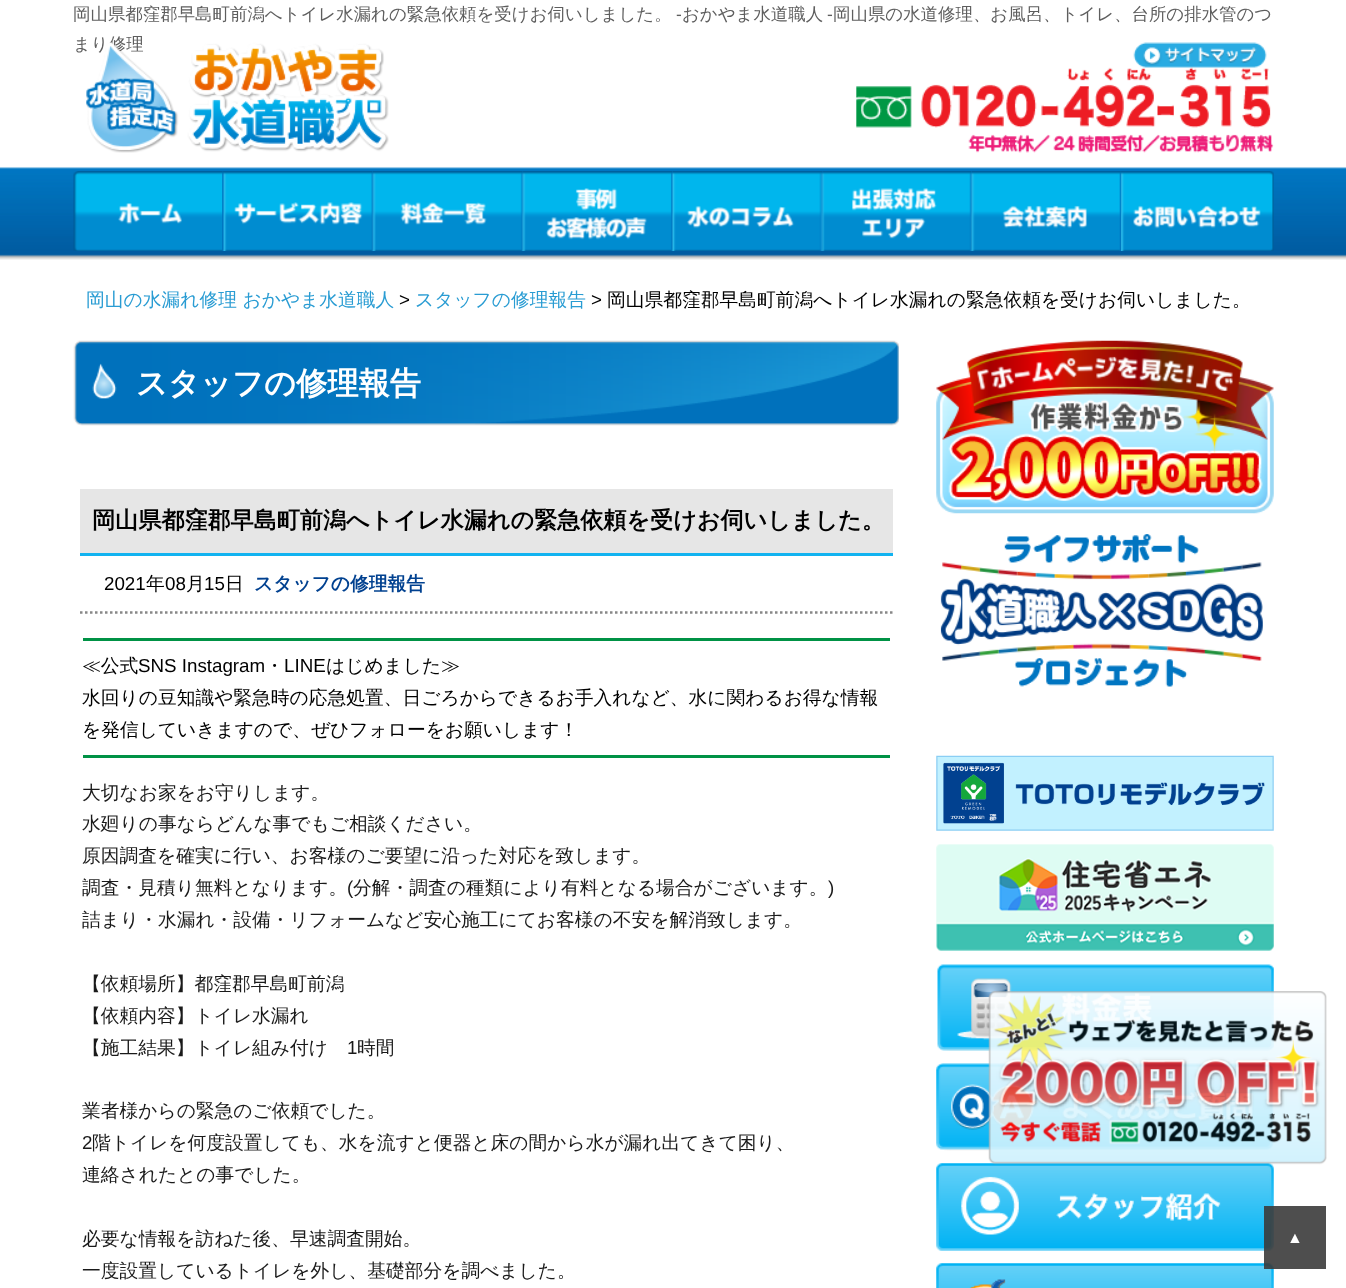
(async () => {
const canvas = document.querySelector("canvas")
canvas.width = 1346
canvas.height = 1288
const c = canvas.getContext("2d")
c.miterLimit = 4
c.fontKerning = "normal"
function T(s,x,y){c.fillText(s,x,y)}
function R(x,y,w,h){c.fillRect(x,y,w,h)}
async function I(src,x,y,w,h){const img=new Image();img.src=src;await img.decode();c.drawImage(img,x,y,w,h)}
let path
c.fillStyle="#fff"
R(0,0,1346,1288)
await I("1.png",0,24,1346,236)
c.font="500 17.45px WenQuanYi Zen Hei"
c.fillStyle="#5e5e5e"
T("岡山県都窪郡早島町前潟へトイレ水漏れの緊急依頼を受けお伺いしました。",73,20)
c.font="17.45px Liberation Sans"
T("-",676,20)
c.font="500 17.45px WenQuanYi Zen Hei"
T("おかやま水道職人",682,20)
c.font="17.45px Liberation Sans"
T("-",827,20)
c.font="500 17.45px WenQuanYi Zen Hei"
T("岡山県の水道修理、お風呂、トイレ、台所の排水管のつ",833,20)
T("まり修理",73,50)
await I("2.png",86,42,303,111)
await I("3.png",1133,42,134,26)
await I("4.png",856,67,418,86)
await I("5.png",73,171,150,80)
await I("6.png",222,171,151,80)
await I("7.png",372,171,151,80)
await I("8.png",522,171,151,80)
await I("9.png",672,171,151,80)
await I("10.png",822,171,150,80)
await I("11.png",970,171,152,80)
await I("12.png",1121,171,153,80)
c.font="500 18.75px WenQuanYi Zen Hei"
c.fillStyle="#299cd3"
T("岡山の水漏れ修理 おかやま水道職人",86,306)
c.font="18.75px Liberation Sans"
c.fillStyle="#000"
T(">",399,306)
c.font="500 18.75px WenQuanYi Zen Hei"
c.fillStyle="#299cd3"
T("スタッフの修理報告",415,306)
c.font="18.75px Liberation Sans"
c.fillStyle="#000"
T(">",591,306)
c.font="500 18.75px WenQuanYi Zen Hei"
T("岡山県都窪郡早島町前潟へトイレ水漏れの緊急依頼を受けお伺いしました。",607,306)
await I("13.png",73,340,826,86)
c.font="bold 31.25px WenQuanYi Zen Hei"
c.fillStyle="#fff"
T("スタッフの修理報告",136,394)
c.fillStyle="#e6e6e6"
R(80,489,813,64)
c.fillStyle="#12b3f0"
R(80,553,813,3)
c.font="bold 23.1px WenQuanYi Zen Hei"
c.fillStyle="#000"
T("岡山県都窪郡早島町前潟へトイレ水漏れの緊急依頼を受けお伺いしました。",92,528)
path = new Path2D("M80 612.5h812.5")
c.strokeStyle="#888"
c.lineWidth=2.5
c.setLineDash([2.5,2.5])
c.stroke(path)
c.font="18.75px Liberation Sans"
T("2021",104,590)
c.font="500 18.75px WenQuanYi Zen Hei"
T("年",146,590)
c.font="18.75px Liberation Sans"
T("08",165,590)
c.font="500 18.75px WenQuanYi Zen Hei"
T("月",186,590)
c.font="18.75px Liberation Sans"
T("15",204,590)
c.font="500 18.75px WenQuanYi Zen Hei"
T("日",225,590)
c.font="bold 18.75px WenQuanYi Zen Hei"
c.fillStyle="#014190"
T("スタッフの修理報告",254,590)
c.fillStyle="#009245"
R(83,638,807,3)
c.font="500 18.75px WenQuanYi Zen Hei"
c.fillStyle="#000"
T("≪公式",82,672)
c.font="18.75px Liberation Sans"
T("SNS Instagram",138,672)
c.font="500 18.75px WenQuanYi Zen Hei"
T("・",265,672)
c.font="18.75px Liberation Sans"
T("LINE",284,672)
c.font="500 18.75px WenQuanYi Zen Hei"
T("はじめました≫",326,672)
T("水回りの豆知識や緊急時の応急処置、日ごろからできるお手入れなど、水に関わるお得な情報",82,704)
T("を発信していきますので、ぜひフォローをお願いします！",82,736)
c.fillStyle="#009245"
R(83,755,807,3)
c.fillStyle="#1a1a1a"
T("大切なお家をお守りします。",82,799)
T("水廻りの事ならどんな事でもご相談ください。",82,830)
T("原因調査を確実に行い、お客様のご要望に沿った対応を致します。",82,862)
T("調査・見積り無料となります。",82,894)
c.font="18.75px Liberation Sans"
T("(",347,894)
c.font="500 18.75px WenQuanYi Zen Hei"
T("分解・調査の種類により有料となる場合がございます。",353,894)
c.font="18.75px Liberation Sans"
T(")",828,894)
c.font="500 18.75px WenQuanYi Zen Hei"
T("詰まり・水漏れ・設備・リフォームなど安心施工にてお客様の不安を解消致します。",82,926)
T("【依頼場所】都窪郡早島町前潟",82,990)
T("【依頼内容】トイレ水漏れ",82,1022)
T("【施工結果】トイレ組み付け",82,1054)
c.font="18.75px Liberation Sans"
T("1",347,1054)
c.font="500 18.75px WenQuanYi Zen Hei"
T("時間",357,1054)
T("業者様からの緊急のご依頼でした。",82,1117)
c.font="18.75px Liberation Sans"
T("2",82,1149)
c.font="500 18.75px WenQuanYi Zen Hei"
T("階トイレを何度設置しても、水を流すと便器と床の間から水が漏れ出てきて困り、",92,1149)
T("連絡されたとの事でした。",82,1181)
T("必要な情報を訪ねた後、早速調査開始。",82,1245)
T("一度設置しているトイレを外し、基礎部分を調べました。",82,1277)
await I("14.png",936,340,338,174)
await I("15.png",940,534,323,153)
await I("16.png",936,755,338,76)
await I("17.png",936,844,338,107)
await I("18.png",937,964,337,87)
await I("19.png",936,1063,338,88)
await I("20.png",936,1163,338,88)
await I("21.png",936,1263,338,25)
await I("22.png",988,991,339,174)
c.fillStyle="#3b3b3be6"
R(1264,1206,62,63)
c.font="16px Liberation Sans"
c.fillStyle="#fff"
T("▲",1287,1243)
})()
